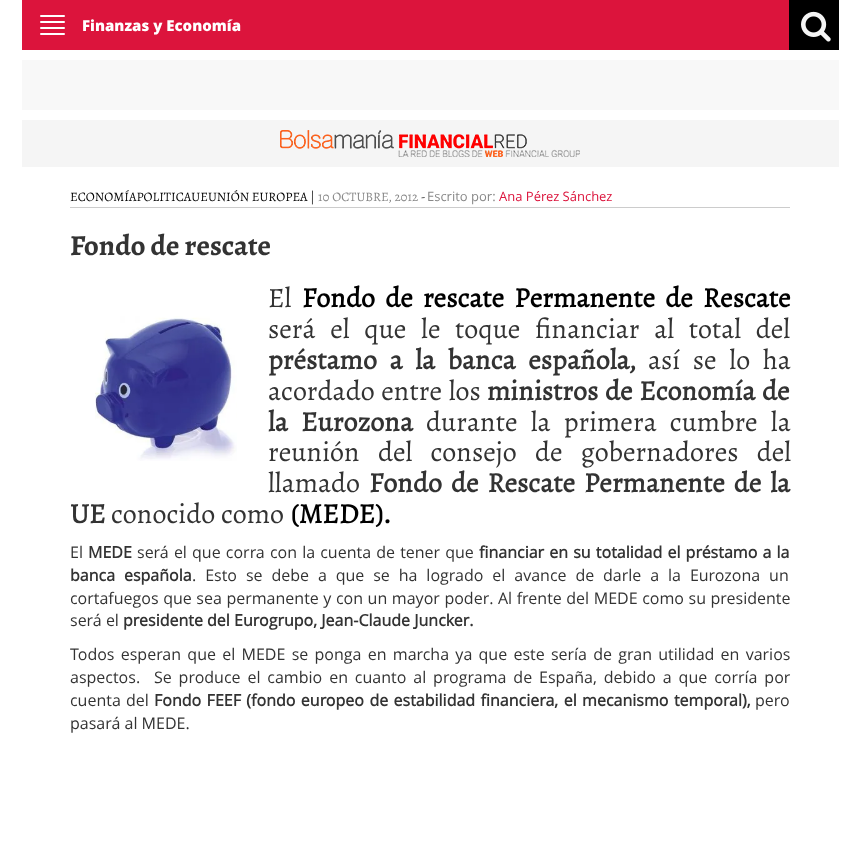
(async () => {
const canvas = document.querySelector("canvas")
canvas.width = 860
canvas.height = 865
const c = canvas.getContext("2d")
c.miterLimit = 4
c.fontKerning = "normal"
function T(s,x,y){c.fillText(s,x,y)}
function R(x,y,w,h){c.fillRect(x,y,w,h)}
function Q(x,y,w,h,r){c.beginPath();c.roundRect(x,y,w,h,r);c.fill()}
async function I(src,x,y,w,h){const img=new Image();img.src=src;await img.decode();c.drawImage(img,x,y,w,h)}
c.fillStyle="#fff"
R(0,0,860,865)
c.fillStyle="#dc143c"
R(22,0,767,50)
c.fillStyle="#fff"
Q(40,15,25,2,1)
Q(40,21,25,2,1)
Q(40,27,25,2,1)
Q(40,33,25,2,1)
c.font="800 15px Open Sans"
T("Finanzas y Economía",82,31)
c.fillStyle="#000"
R(789,0,50,50)
await I("1.png",801,11,30,31)
c.fillStyle="#f8f8f8"
R(22,60,817,50)
c.fillStyle="#f5f5f5"
R(22,120,817,47)
await I("2.png",280,130,300,27)
c.fillStyle="#ccc"
R(70,207,720,1)
c.font="13px Alegreya"
c.fillStyle="#000"
T("ECONOMÍAPOLITICAUEUNIÓN EUROPEA",70,201)
c.fillStyle="#333"
T("|",310,201)
c.fillStyle="#888"
T("10 OCTUBRE, 2012",318,201)
c.fillStyle="#333"
T("-",421,201)
c.font="13px Open Sans"
c.fillStyle="#888"
T("Escrito por:",427,201)
c.fillStyle="#dc143c"
T("Ana Pérez Sánchez",499,201)
c.font="bold 29px Alegreya"
c.fillStyle="#333"
T("Fondo de rescate",70,255)
c.font="28px Alegreya"
T("El",268,307)
c.wordSpacing="4.5px"
c.font="bold 28px 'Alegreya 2'"
c.fillStyle="#000"
T("Fondo de rescate Permanente de Rescate",302,307)
c.wordSpacing="9px"
c.font="28px Alegreya"
c.fillStyle="#333"
T("será el que le toque financiar al total del",268,338)
c.wordSpacing="7px"
c.font="bold 28px 'Alegreya 2'"
T("préstamo a la banca española,",268,369)
c.font="28px Alegreya"
T("así se lo ha",648,369)
c.wordSpacing="1px"
T("acordado entre los",268,400)
c.font="bold 28px 'Alegreya 2'"
T("ministros de Economía de",487,400)
c.wordSpacing="7.5px"
T("la Eurozona",268,431)
c.font="28px Alegreya"
T("durante la primera cumbre la",426,431)
c.wordSpacing="12.5px"
T("reunión del consejo de gobernadores del",268,461)
c.wordSpacing="0px"
T("llamado",268,492)
c.wordSpacing="3.25px"
c.font="bold 28px 'Alegreya 2'"
T("Fondo de Rescate Permanente de la",369,492)
c.wordSpacing="0px"
T("UE",70,523)
c.font="28px Alegreya"
T("conocido como",111,523)
c.font="bold 28px 'Alegreya 2'"
c.fillStyle="#000"
T("(MEDE).",290,523)
await I("3.png",95,316,142,145)
c.font="16px Open Sans"
c.fillStyle="#333"
T("El",70,558)
c.font="bold 16px Open Sans"
T("MEDE",88,558)
c.wordSpacing="1px"
c.font="16px Open Sans"
T("será el que corra con la cuenta de tener que",137,558)
c.font="bold 16px Open Sans"
T("financiar en su totalidad el préstamo a la",479,558)
c.wordSpacing="4.75px"
T("banca española",70,581)
c.font="16px Open Sans"
T(". Esto se debe a que se ha logrado el avance de darle a la Eurozona un",192,581)
c.wordSpacing="0.4px"
T("cortafuegos que sea permanente y con un mayor poder. Al frente del MEDE como su presidente",70,604)
c.wordSpacing="0px"
T("será el",70,626)
c.font="bold 16px Open Sans"
T("presidente del Eurogrupo, Jean-Claude Juncker.",123,626)
c.wordSpacing="2.1px"
c.font="16px Open Sans"
T("Todos esperan que el MEDE se ponga en marcha ya que este sería de gran utilidad en varios",70,660)
c.wordSpacing="2.75px"
T("aspectos.  Se produce el cambio en cuanto al programa de España, debido a que corría por",70,683)
c.wordSpacing="1px"
T("cuenta del",70,706)
c.wordSpacing="1.25px"
c.font="bold 16px Open Sans"
T("Fondo FEEF (fondo europeo de estabilidad financiera, el mecanismo temporal),",154,706)
c.wordSpacing="0px"
c.font="16px Open Sans"
T("pero",755,706)
T("pasará al MEDE.",70,729)
})()
